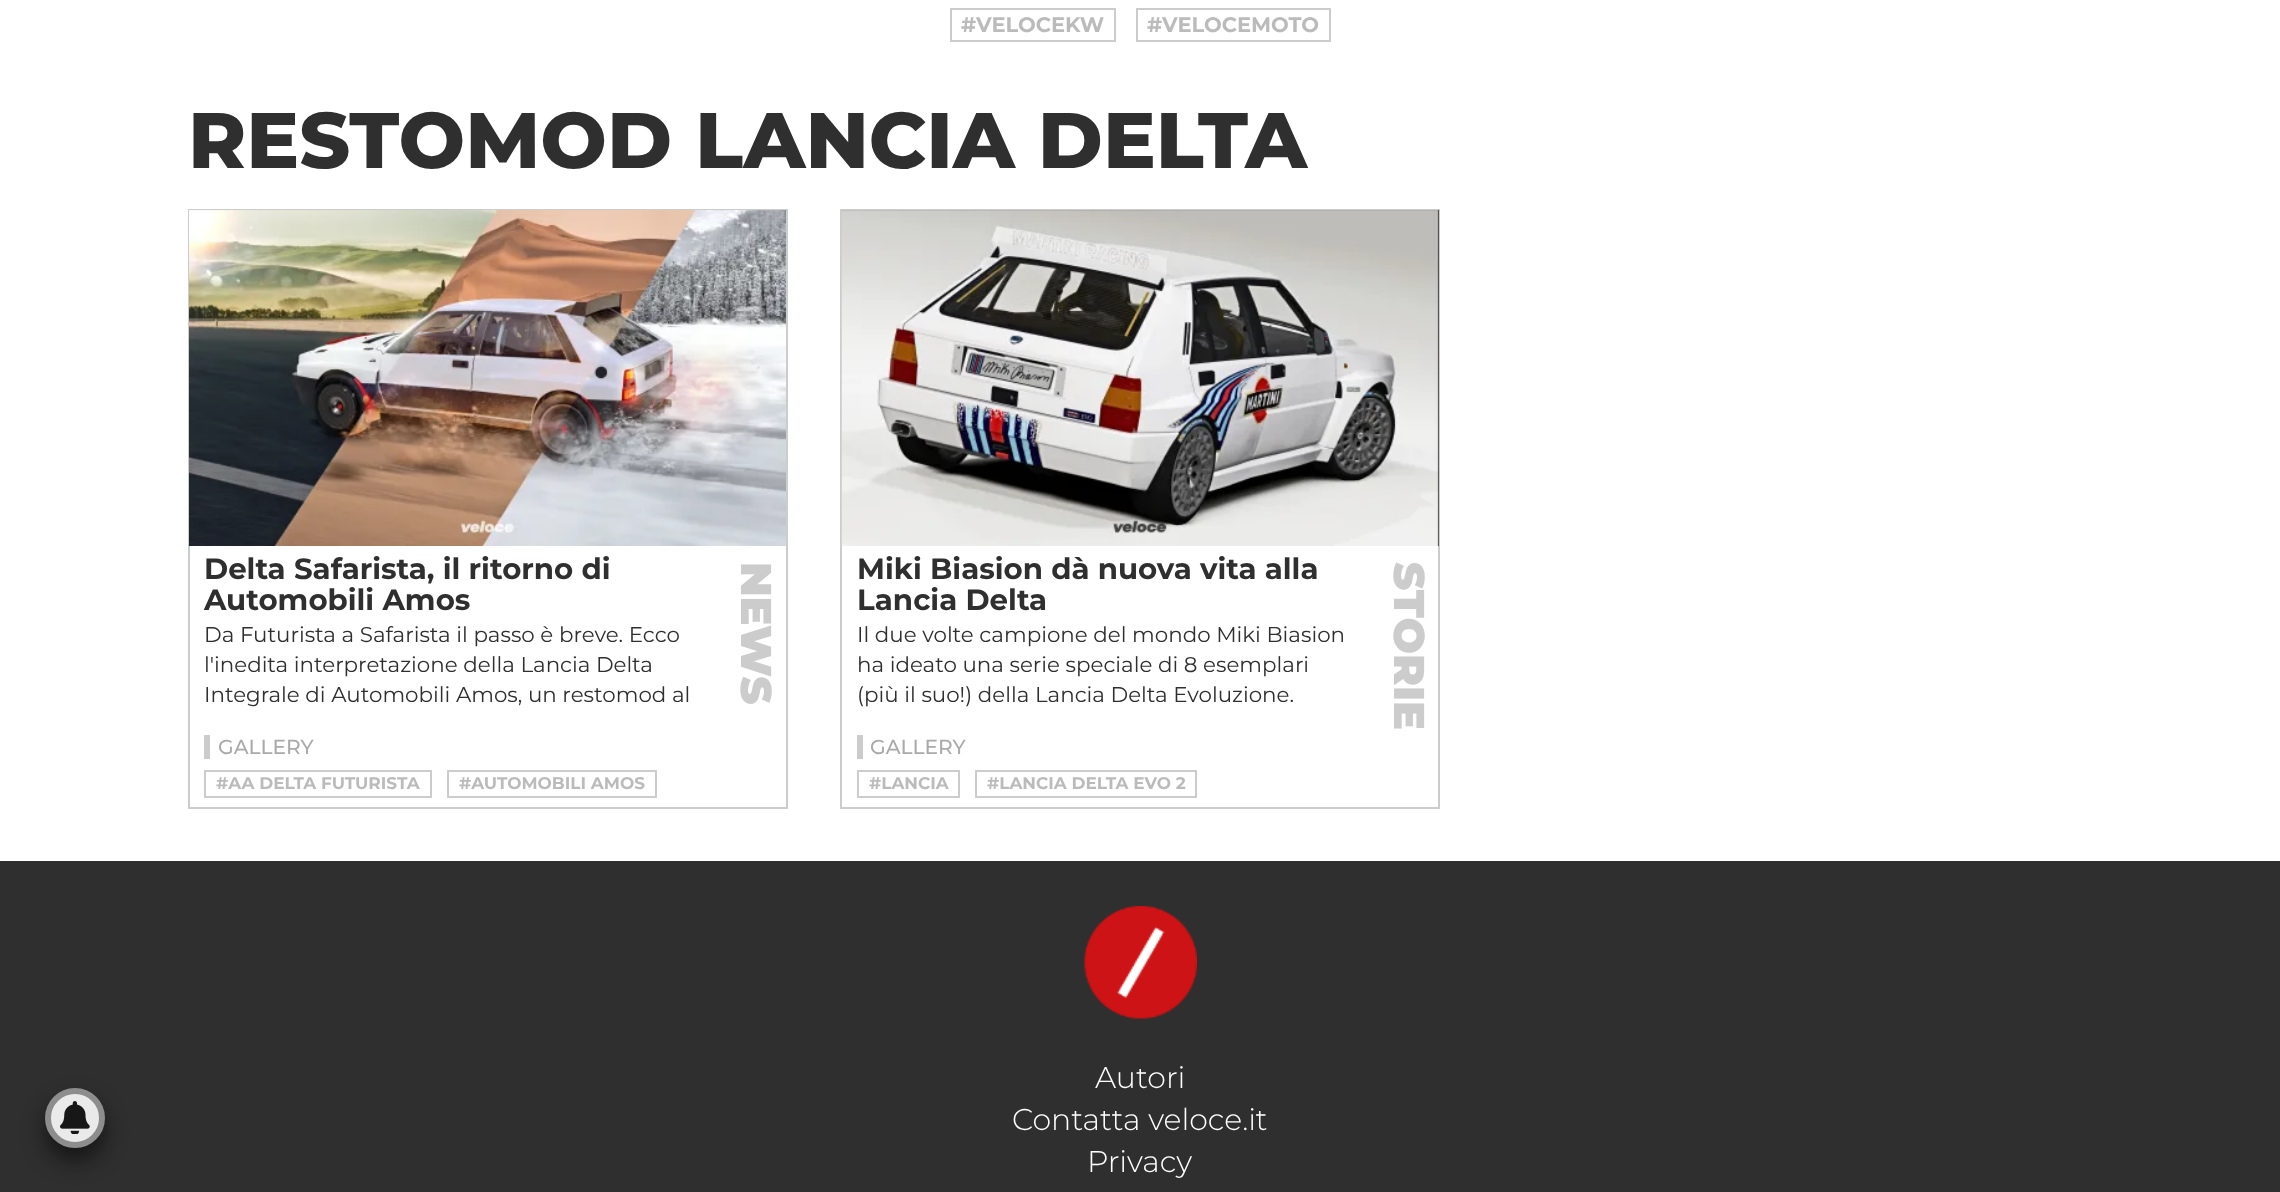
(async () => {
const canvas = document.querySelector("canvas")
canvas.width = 2280
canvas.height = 1192
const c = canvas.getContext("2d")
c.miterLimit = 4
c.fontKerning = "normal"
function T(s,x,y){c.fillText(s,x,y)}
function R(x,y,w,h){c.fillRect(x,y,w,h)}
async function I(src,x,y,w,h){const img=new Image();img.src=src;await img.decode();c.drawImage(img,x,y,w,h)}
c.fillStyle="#fff"
R(0,0,2280,1192)
c.strokeStyle="#ccc"
c.lineWidth=2
c.strokeRect(951,9,164,32)
c.font="bold 21px Montserrat"
c.fillStyle="#bbb"
T("#VELOCEKW",961,32)
c.strokeRect(1137,9,193,32)
T("#VELOCEMOTO",1147,32)
c.font="800 78.75px Montserrat"
c.fillStyle="#2f2f2f"
T("RESTOMOD LANCIA DELTA",188,168)
c.strokeRect(189,210,598,598)
await I("1.png",189,210,597,336)
c.font="bold 29.25px Montserrat"
T("Delta Safarista, il ritorno di",204,579)
T("Automobili Amos",204,610)
c.font="21.4px Montserrat"
T("Da Futurista a Safarista il passo è breve. Ecco",204,642)
T("l'inedita interpretazione della Lancia Delta",204,672)
T("Integrale di Automobili Amos, un restomod al",204,702)
c.font="900 43px Montserrat"
c.fillStyle="#ccc"
c.save()
c.translate(741,562)
c.rotate(90 * Math.PI / 180)
c.fillText("NEWS",0,0)
c.restore()
R(204,735,6,24)
c.font="500 20.25px Montserrat"
c.fillStyle="#aaa"
T("GALLERY",218,754)
c.strokeRect(205,771,226,26)
c.font="bold 16.9px Montserrat"
c.fillStyle="#bbb"
T("#AA DELTA FUTURISTA",216,789)
c.strokeRect(448,771,208,26)
T("#AUTOMOBILI AMOS",459,789)
c.strokeRect(841,210,598,598)
c.fillStyle="#333"
R(842,210,597,336)
await I("2.png",841,210,598,336)
c.font="bold 29.25px Montserrat"
c.fillStyle="#2f2f2f"
T("Miki Biasion dà nuova vita alla",857,579)
T("Lancia Delta",857,610)
c.font="21.4px Montserrat"
T("Il due volte campione del mondo Miki Biasion",857,642)
T("ha ideato una serie speciale di 8 esemplari",857,672)
T("(più il suo!) della Lancia Delta Evoluzione.",857,702)
c.font="900 43px Montserrat"
c.fillStyle="#ccc"
c.save()
c.translate(1394,562)
c.rotate(90 * Math.PI / 180)
c.fillText("STORIE",0,0)
c.restore()
R(857,735,6,24)
c.font="500 20.25px Montserrat"
c.fillStyle="#aaa"
T("GALLERY",870,754)
c.strokeRect(858,771,101,26)
c.font="bold 16.9px Montserrat"
c.fillStyle="#bbb"
T("#LANCIA",869,789)
c.strokeRect(976,771,220,26)
T("#LANCIA DELTA EVO 2",987,789)
c.fillStyle="#2f2f2f"
R(0,861,2280,331)
c.fillStyle="#05050599"
c.filter="blur(11px)"
c.beginPath()
c.roundRect(45,1101,60,60,30)
c.fill()
c.filter="none"
c.fillStyle="#eaeaea"
c.beginPath()
c.arc(75,1118,27,0,7)
c.fill()
c.strokeStyle="#8d8d8d"
c.lineWidth=6
c.stroke()
await I("3.png",60,1101,30,33)
await I("4.png",1084,906,113,113)
c.font="300 30px Montserrat"
c.fillStyle="#fff"
T("Autori",1095,1088)
T("Contatta veloce.it",1012,1130)
T("Privacy",1087,1172)
})()
